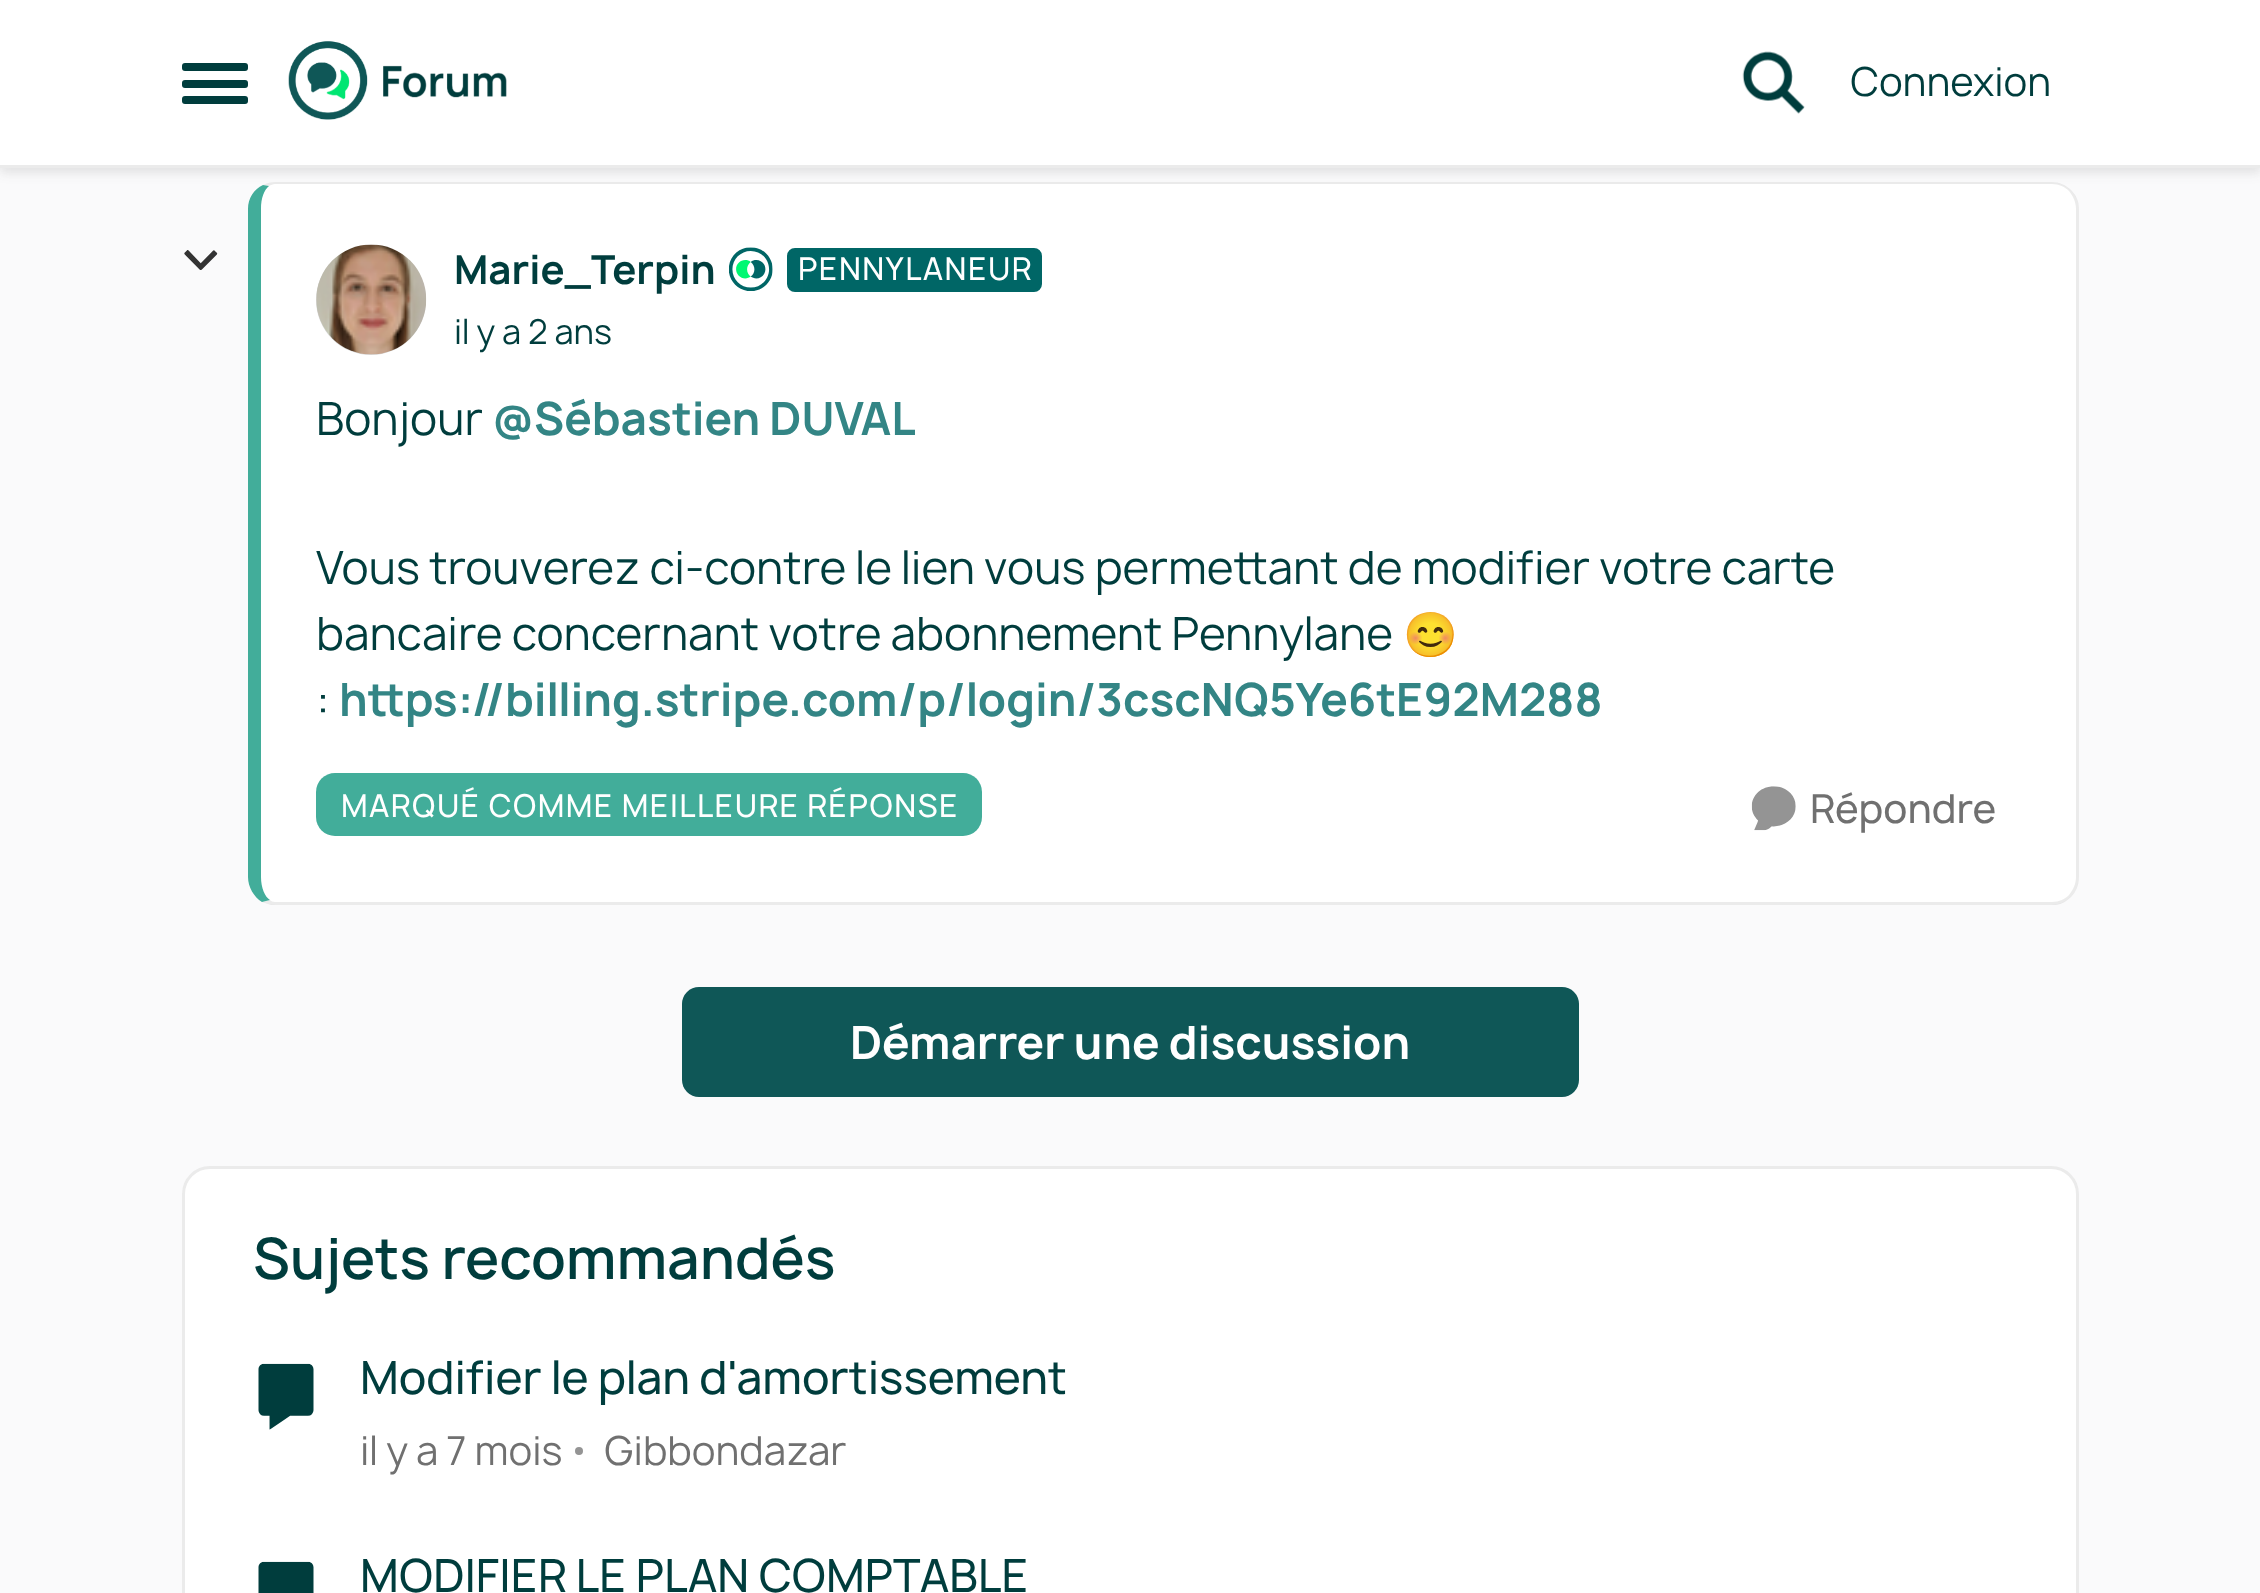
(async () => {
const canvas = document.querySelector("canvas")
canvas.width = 2260
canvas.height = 1593
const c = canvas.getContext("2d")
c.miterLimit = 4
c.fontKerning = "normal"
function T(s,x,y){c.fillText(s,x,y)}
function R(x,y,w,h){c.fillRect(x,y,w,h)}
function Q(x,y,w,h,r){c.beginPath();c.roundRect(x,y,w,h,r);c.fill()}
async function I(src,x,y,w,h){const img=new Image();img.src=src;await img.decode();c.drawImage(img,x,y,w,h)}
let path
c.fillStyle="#fafafb"
R(0,0,2260,1593)
c.fillStyle="#fff"
Q(248,182,1831,723,28)
c.fillStyle="#00000014"
path = new Path2D("M275 182c-4 0-8 1-12 3l6 1c2-1 4-2 6-2h1777c7 0 13 3 17 7l2-1c-5-5-12-8-19-8z")
c.fill(path)
path = new Path2D("M2071 190c5 5 8 11 8 19v668c0 8-3 15-8 20l-2-2c4-5 7-11 7-18v-668c0-7-3-13-7-18z")
c.fill(path)
path = new Path2D("M271 905c-3-1-6-2-9-3l8-2c1 1 3 2 5 2h1777c7 0 13-3 17-7l2 2c-4 4-9 7-15 8z")
c.fill(path)
c.fillStyle="#42ad9a"
path = new Path2D("M263 185c-9 4-15 13-15 24v668c0 10 6 20 14 25l8-2c-5-3-9-12-9-23v-668c0-11 3-19 8-23z")
c.fill(path)
c.fillStyle="#3333331f"
c.filter="blur(5.5px)"
c.beginPath()
c.rect(0,6,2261,167)
c.fill()
c.filter="none"
c.fillStyle="#fff"
R(0,0,2260,165)
c.fillStyle="#ebebeb"
R(0,165,2260,3)
c.fillStyle="#003d3d"
Q(182,63,66,8,3)
Q(182,80,66,8,3)
Q(182,96,66,8,3)
await I("1.png",288,41,219,79)
await I("2.png",1742,51,63,63)
c.font="38.5px Manrope"
T("Connexion",1850,96)
await I("3.png",184,250,34,20)
c.fillStyle="#d9d9d9"
c.beginPath()
c.arc(371,300,55,0,7)
c.fill()
await I("4.png",316,244,111,111)
c.font="bold 38.5px Manrope"
c.fillStyle="#003d3d"
T("Marie_Terpin",454,284)
await I("5.png",729,247,44,44)
c.fillStyle="#066"
c.beginPath()
c.roundRect(788.5,249.5,252,41,6.5)
c.fill()
c.strokeStyle="#066"
c.lineWidth=3
c.stroke()
c.letterSpacing="1.4px"
c.font="500 30.25px Manrope"
c.fillStyle="#fff"
T("PENNYLANEUR",798,280)
c.letterSpacing="0px"
c.font="33px Manrope"
c.fillStyle="#003d3d"
T("il y a 2 ans",454,344)
c.font="44px Manrope"
T("Bonjour",316,435)
c.font="bold 44px Manrope"
c.fillStyle="#338585"
T("@Sébastien DUVAL",492,435)
c.font="44px Manrope"
c.fillStyle="#003d3d"
T("Vous trouverez ci-contre le lien vous permettant de modifier votre carte",316,584)
T("bancaire concernant votre abonnement Pennylane",316,650)
c.font="44px Noto Color Emoji"
T("😊",1403,650)
c.font="44px Manrope"
T(":",316,716)
c.font="bold 44px Manrope"
c.fillStyle="#338585"
T("https://billing.stripe.com/p/login/3cscNQ5Ye6tE92M288",339,716)
c.fillStyle="#42ad9a"
Q(316,773,666,63,19)
c.letterSpacing="1.4px"
c.font="500 30.25px Manrope"
c.fillStyle="#fff"
T("MARQUÉ COMME MEILLEURE RÉPONSE",341,817)
await I("6.png",1751,786,45,45)
c.letterSpacing="0px"
c.font="500 38.5px Manrope"
c.fillStyle="#707070"
T("Répondre",1810,823)
c.fillStyle="#0f5757"
Q(682,987,897,110,17)
c.font="bold 44px Manrope"
c.fillStyle="#fff"
T("Démarrer une discussion",850,1059)
c.beginPath()
c.roundRect(183.5,1167.5,1894,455,26.5)
c.fill()
c.strokeStyle="#ebebeb"
c.stroke()
c.font="600 55px Manrope"
c.fillStyle="#003d3d"
T("Sujets recommandés",253,1279)
await I("7.png",258,1363,56,67)
c.font="500 44px Manrope"
T("Modifier le plan d'amortissement",360,1394)
c.font="38.5px Manrope"
c.fillStyle="#707070"
T("il y a 7 mois",360,1465)
c.fillStyle="#949494"
c.beginPath()
c.arc(579,1451,4,0,7)
c.fill()
c.fillStyle="#707070"
T("Gibbondazar",604,1465)
await I("8.png",258,1561,56,32)
c.font="500 44px Manrope"
c.fillStyle="#003d3d"
T("MODIFIER LE PLAN COMPTABLE",360,1592)
})()
